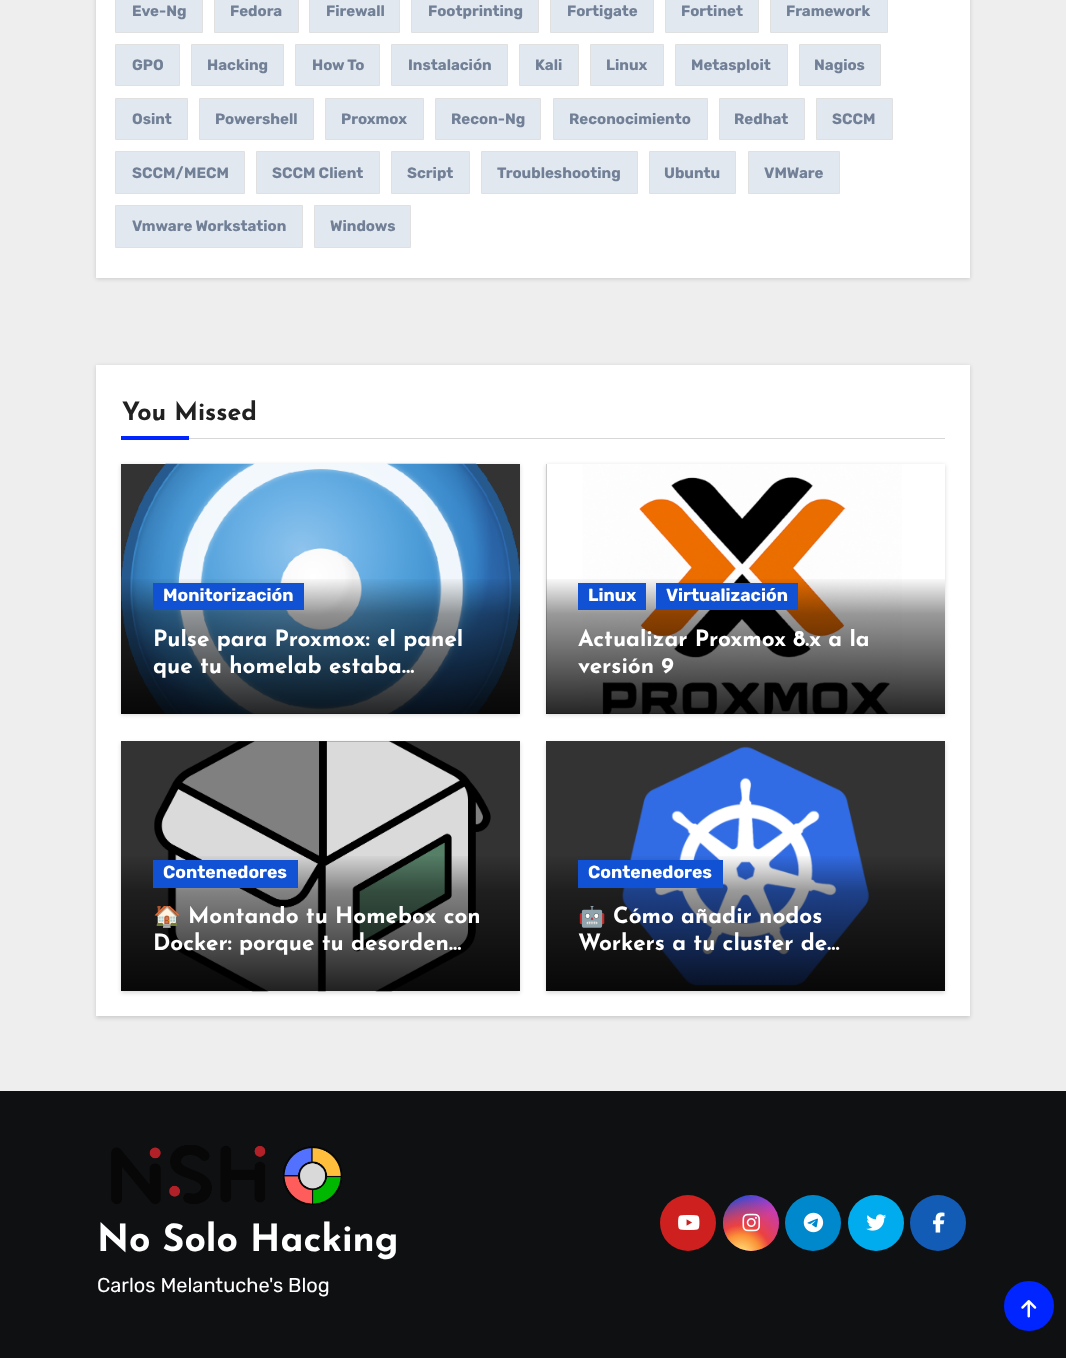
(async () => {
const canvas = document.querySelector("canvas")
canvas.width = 1066
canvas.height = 1358
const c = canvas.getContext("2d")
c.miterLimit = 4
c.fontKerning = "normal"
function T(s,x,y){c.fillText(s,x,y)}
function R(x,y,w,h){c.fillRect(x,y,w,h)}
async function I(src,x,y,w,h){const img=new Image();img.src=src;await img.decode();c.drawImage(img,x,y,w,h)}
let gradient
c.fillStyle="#eee"
R(0,0,1066,1358)
c.fillStyle="#00000026"
c.filter="blur(2px)"
c.beginPath()
c.rect(96,-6,874,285)
c.fill()
c.filter="none"
c.fillStyle="#fff"
R(96,0,874,278)
c.fillStyle="#e2e8f0"
c.beginPath()
c.rect(115.5,-.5,87,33)
c.fill()
c.strokeStyle="#e0e0e0"
c.stroke()
c.font="bold 15px Rubik"
c.fillStyle="#718096"
T("Eve-Ng",132,16)
c.fillStyle="#e2e8f0"
c.beginPath()
c.rect(214.5,-.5,84,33)
c.fill()
c.stroke()
c.fillStyle="#718096"
T("Fedora",230,16)
c.fillStyle="#e2e8f0"
c.beginPath()
c.rect(309.5,-.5,90,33)
c.fill()
c.stroke()
c.fillStyle="#718096"
T("Firewall",326,16)
c.fillStyle="#e2e8f0"
c.beginPath()
c.rect(411.5,-.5,127,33)
c.fill()
c.stroke()
c.fillStyle="#718096"
T("Footprinting",428,16)
c.fillStyle="#e2e8f0"
c.beginPath()
c.rect(550.5,-.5,103,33)
c.fill()
c.stroke()
c.fillStyle="#718096"
T("Fortigate",567,16)
c.fillStyle="#e2e8f0"
c.beginPath()
c.rect(665.5,-.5,93,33)
c.fill()
c.stroke()
c.fillStyle="#718096"
T("Fortinet",681,16)
c.fillStyle="#e2e8f0"
c.beginPath()
c.rect(770.5,-.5,117,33)
c.fill()
c.stroke()
c.fillStyle="#718096"
T("Framework",786,16)
c.fillStyle="#e2e8f0"
c.beginPath()
c.rect(115.5,44.5,64,41)
c.fill()
c.stroke()
c.fillStyle="#718096"
T("GPO",132,70)
c.fillStyle="#e2e8f0"
c.beginPath()
c.rect(191.5,44.5,92,41)
c.fill()
c.stroke()
c.fillStyle="#718096"
T("Hacking",207,70)
c.fillStyle="#e2e8f0"
c.beginPath()
c.rect(295.5,44.5,84,41)
c.fill()
c.stroke()
c.fillStyle="#718096"
T("How To",312,70)
c.fillStyle="#e2e8f0"
c.beginPath()
c.rect(391.5,44.5,116,41)
c.fill()
c.stroke()
c.fillStyle="#718096"
T("Instalación",408,70)
c.fillStyle="#e2e8f0"
c.beginPath()
c.rect(519.5,44.5,59,41)
c.fill()
c.stroke()
c.fillStyle="#718096"
T("Kali",535,70)
c.fillStyle="#e2e8f0"
c.beginPath()
c.rect(590.5,44.5,73,41)
c.fill()
c.stroke()
c.fillStyle="#718096"
T("Linux",606,70)
c.fillStyle="#e2e8f0"
c.beginPath()
c.rect(675.5,44.5,112,41)
c.fill()
c.stroke()
c.fillStyle="#718096"
T("Metasploit",691,70)
c.fillStyle="#e2e8f0"
c.beginPath()
c.rect(799.5,44.5,81,41)
c.fill()
c.stroke()
c.fillStyle="#718096"
T("Nagios",814,70)
c.fillStyle="#e2e8f0"
c.beginPath()
c.rect(115.5,98.5,72,41)
c.fill()
c.stroke()
c.fillStyle="#718096"
T("Osint",132,124)
c.fillStyle="#e2e8f0"
c.beginPath()
c.rect(199.5,98.5,114,41)
c.fill()
c.stroke()
c.fillStyle="#718096"
T("Powershell",215,124)
c.fillStyle="#e2e8f0"
c.beginPath()
c.rect(325.5,98.5,98,41)
c.fill()
c.stroke()
c.fillStyle="#718096"
T("Proxmox",341,124)
c.fillStyle="#e2e8f0"
c.beginPath()
c.rect(435.5,98.5,105,41)
c.fill()
c.stroke()
c.fillStyle="#718096"
T("Recon-Ng",451,124)
c.fillStyle="#e2e8f0"
c.beginPath()
c.rect(553.5,98.5,154,41)
c.fill()
c.stroke()
c.fillStyle="#718096"
T("Reconocimiento",569,124)
c.fillStyle="#e2e8f0"
c.beginPath()
c.rect(719.5,98.5,85,41)
c.fill()
c.stroke()
c.fillStyle="#718096"
T("Redhat",734,124)
c.fillStyle="#e2e8f0"
c.beginPath()
c.rect(816.5,98.5,76,41)
c.fill()
c.stroke()
c.fillStyle="#718096"
T("SCCM",832,124)
c.fillStyle="#e2e8f0"
c.beginPath()
c.rect(115.5,151.5,129,42)
c.fill()
c.stroke()
c.fillStyle="#718096"
T("SCCM/MECM",132,178)
c.fillStyle="#e2e8f0"
c.beginPath()
c.rect(256.5,151.5,123,42)
c.fill()
c.stroke()
c.fillStyle="#718096"
T("SCCM Client",272,178)
c.fillStyle="#e2e8f0"
c.beginPath()
c.rect(391.5,151.5,78,42)
c.fill()
c.stroke()
c.fillStyle="#718096"
T("Script",407,178)
c.fillStyle="#e2e8f0"
c.beginPath()
c.rect(481.5,151.5,156,42)
c.fill()
c.stroke()
c.fillStyle="#718096"
T("Troubleshooting",497,178)
c.fillStyle="#e2e8f0"
c.beginPath()
c.rect(649.5,151.5,86,42)
c.fill()
c.stroke()
c.fillStyle="#718096"
T("Ubuntu",664,178)
c.fillStyle="#e2e8f0"
c.beginPath()
c.rect(748.5,151.5,91,42)
c.fill()
c.stroke()
c.fillStyle="#718096"
T("VMWare",764,178)
c.fillStyle="#e2e8f0"
c.beginPath()
c.rect(115.5,205.5,187,42)
c.fill()
c.stroke()
c.fillStyle="#718096"
T("Vmware Workstation",132,231)
c.fillStyle="#e2e8f0"
c.beginPath()
c.rect(314.5,205.5,96,42)
c.fill()
c.stroke()
c.fillStyle="#718096"
T("Windows",330,231)
c.fillStyle="#00000026"
c.filter="blur(2px)"
c.beginPath()
c.rect(96,366,874,652)
c.fill()
c.filter="none"
c.fillStyle="#fff"
R(96,365,874,651)
c.fillStyle="#d7d7d7"
R(189,438,756,1)
c.font="bold 25px Josefin Sans"
c.fillStyle="#212121"
T("You Missed",122,420)
c.fillStyle="#0025ff"
R(121,436,68,4)
c.fillStyle="#00000026"
c.filter="blur(2px)"
c.beginPath()
c.rect(121,465,399,250)
c.fill()
c.filter="none"
c.fillStyle="#333"
R(121,464,399,250)
await I("1.png",121,463,399,251)
gradient = c.createLinearGradient(321,464,321,714)
gradient.addColorStop(0,"#00000000")
gradient.addColorStop(.45,"#00000000")
gradient.addColorStop(.6,"#00000066")
gradient.addColorStop(1,"#000000d9")
c.fillStyle = gradient
R(121,579,399,135)
c.fillStyle="#1151d3"
R(153,583,151,27)
c.font="bold 17.5px Rubik"
c.fillStyle="#fff"
T("Monitorización",163,601)
c.save()
c.beginPath()
c.rect(153,629,336,54)
c.clip()
c.font="bold 22.5px Josefin Sans"
T("Pulse para Proxmox: el panel",153,646)
c.restore()
c.font="bold 22.5px Josefin Sans"
T("que tu homelab estaba…",153,673)
c.fillStyle="#00000026"
c.filter="blur(2px)"
c.beginPath()
c.rect(546,465,399,250)
c.fill()
c.filter="none"
c.fillStyle="#333"
R(546,464,399,250)
await I("2.png",546,464,399,250)
gradient = c.createLinearGradient(746,464,746,714)
gradient.addColorStop(0,"#00000000")
gradient.addColorStop(.45,"#00000000")
gradient.addColorStop(.6,"#00000066")
gradient.addColorStop(1,"#000000d9")
c.fillStyle = gradient
R(546,579,399,135)
c.fillStyle="#1151d3"
R(578,583,68,27)
c.font="bold 17.5px Rubik"
c.fillStyle="#fff"
T("Linux",588,601)
c.fillStyle="#1151d3"
R(656,583,142,27)
c.fillStyle="#fff"
T("Virtualización",666,601)
c.save()
c.beginPath()
c.rect(578,629,336,54)
c.clip()
c.font="bold 22.5px Josefin Sans"
T("Actualizar Proxmox 8.x a la",578,646)
c.restore()
c.font="bold 22.5px Josefin Sans"
T("versión 9",578,673)
c.fillStyle="#00000026"
c.filter="blur(2px)"
c.beginPath()
c.rect(121,743,399,250)
c.fill()
c.filter="none"
c.fillStyle="#333"
R(121,741,399,250)
await I("3.png",154,741,337,251)
gradient = c.createLinearGradient(321,741,321,991)
gradient.addColorStop(0,"#00000000")
gradient.addColorStop(.45,"#00000000")
gradient.addColorStop(.6,"#00000066")
gradient.addColorStop(1,"#000000d9")
c.fillStyle = gradient
R(121,856,399,135)
c.fillStyle="#1151d3"
R(153,860,145,28)
c.font="bold 17.5px Rubik"
c.fillStyle="#fff"
T("Contenedores",163,878)
c.save()
c.beginPath()
c.rect(153,906,336,54)
c.clip()
c.font="bold 22.5px Noto Color Emoji"
T("🏠",153,923)
c.font="bold 22.5px Josefin Sans"
T("Montando tu Homebox con",188,923)
c.restore()
c.font="bold 22.5px Josefin Sans"
T("Docker: porque tu desorden…",153,950)
c.fillStyle="#00000026"
c.filter="blur(2px)"
c.beginPath()
c.rect(546,743,399,250)
c.fill()
c.filter="none"
c.fillStyle="#333"
R(546,741,399,250)
await I("4.png",622,746,247,240)
gradient = c.createLinearGradient(746,741,746,991)
gradient.addColorStop(0,"#00000000")
gradient.addColorStop(.45,"#00000000")
gradient.addColorStop(.6,"#00000066")
gradient.addColorStop(1,"#000000d9")
c.fillStyle = gradient
R(546,856,399,135)
c.fillStyle="#1151d3"
R(578,860,145,28)
c.font="bold 17.5px Rubik"
c.fillStyle="#fff"
T("Contenedores",588,878)
c.save()
c.beginPath()
c.rect(578,906,336,54)
c.clip()
c.font="bold 22.5px Noto Color Emoji"
T("🤖",578,923)
c.font="bold 22.5px Josefin Sans"
T("Cómo añadir nodos",613,923)
c.restore()
c.font="bold 22.5px Josefin Sans"
T("Workers a tu cluster de…",578,950)
c.fillStyle="#0f1012"
R(0,1091,1066,267)
await I("5.png",111,1145,231,60)
c.font="bold 37.5px Josefin Sans"
c.fillStyle="#fff"
T("No Solo Hacking",97,1251)
c.font="300 20px Rubik"
T("Carlos Melantuche's Blog",97,1292)
c.fillStyle="#cd201f"
c.beginPath()
c.arc(688,1223,28,0,7)
c.fill()
await I("6.png",678,1215,22,15)
gradient = c.createLinearGradient(723,1195,779,1251)
gradient.addColorStop(.12,"#234bd7")
gradient.addColorStop(.58,"#c33cbe")
c.fillStyle = gradient
c.beginPath()
c.arc(751,1223,28,0,7)
c.fill()
gradient = c.createRadialGradient(741,1255,0,741,1255,71)
gradient.addColorStop(0,"#ffe17d")
gradient.addColorStop(.1,"#ffcd69")
gradient.addColorStop(.28,"#fa9137")
gradient.addColorStop(.42,"#eb4141")
gradient.addColorStop(.82,"#eb414100")
c.fillStyle = gradient
c.beginPath()
c.arc(751,1223,28,0,7)
c.fill()
await I("7.png",742,1213,18,19)
c.fillStyle="#08c"
c.beginPath()
c.arc(813,1223,28,0,7)
c.fill()
await I("8.png",803,1212,21,21)
c.fillStyle="#00aced"
c.beginPath()
c.arc(876,1223,28,0,7)
c.fill()
await I("9.png",866,1214,21,17)
c.fillStyle="#135cb6"
c.beginPath()
c.arc(938,1223,28,0,7)
c.fill()
await I("10.png",933,1212,12,21)
c.fillStyle="#0025ff"
c.beginPath()
c.arc(1029,1306,23.5,0,7)
c.fill()
c.strokeStyle="#0025ff"
c.lineWidth=3
c.stroke()
await I("11.png",1021,1300,16,18)
})()
